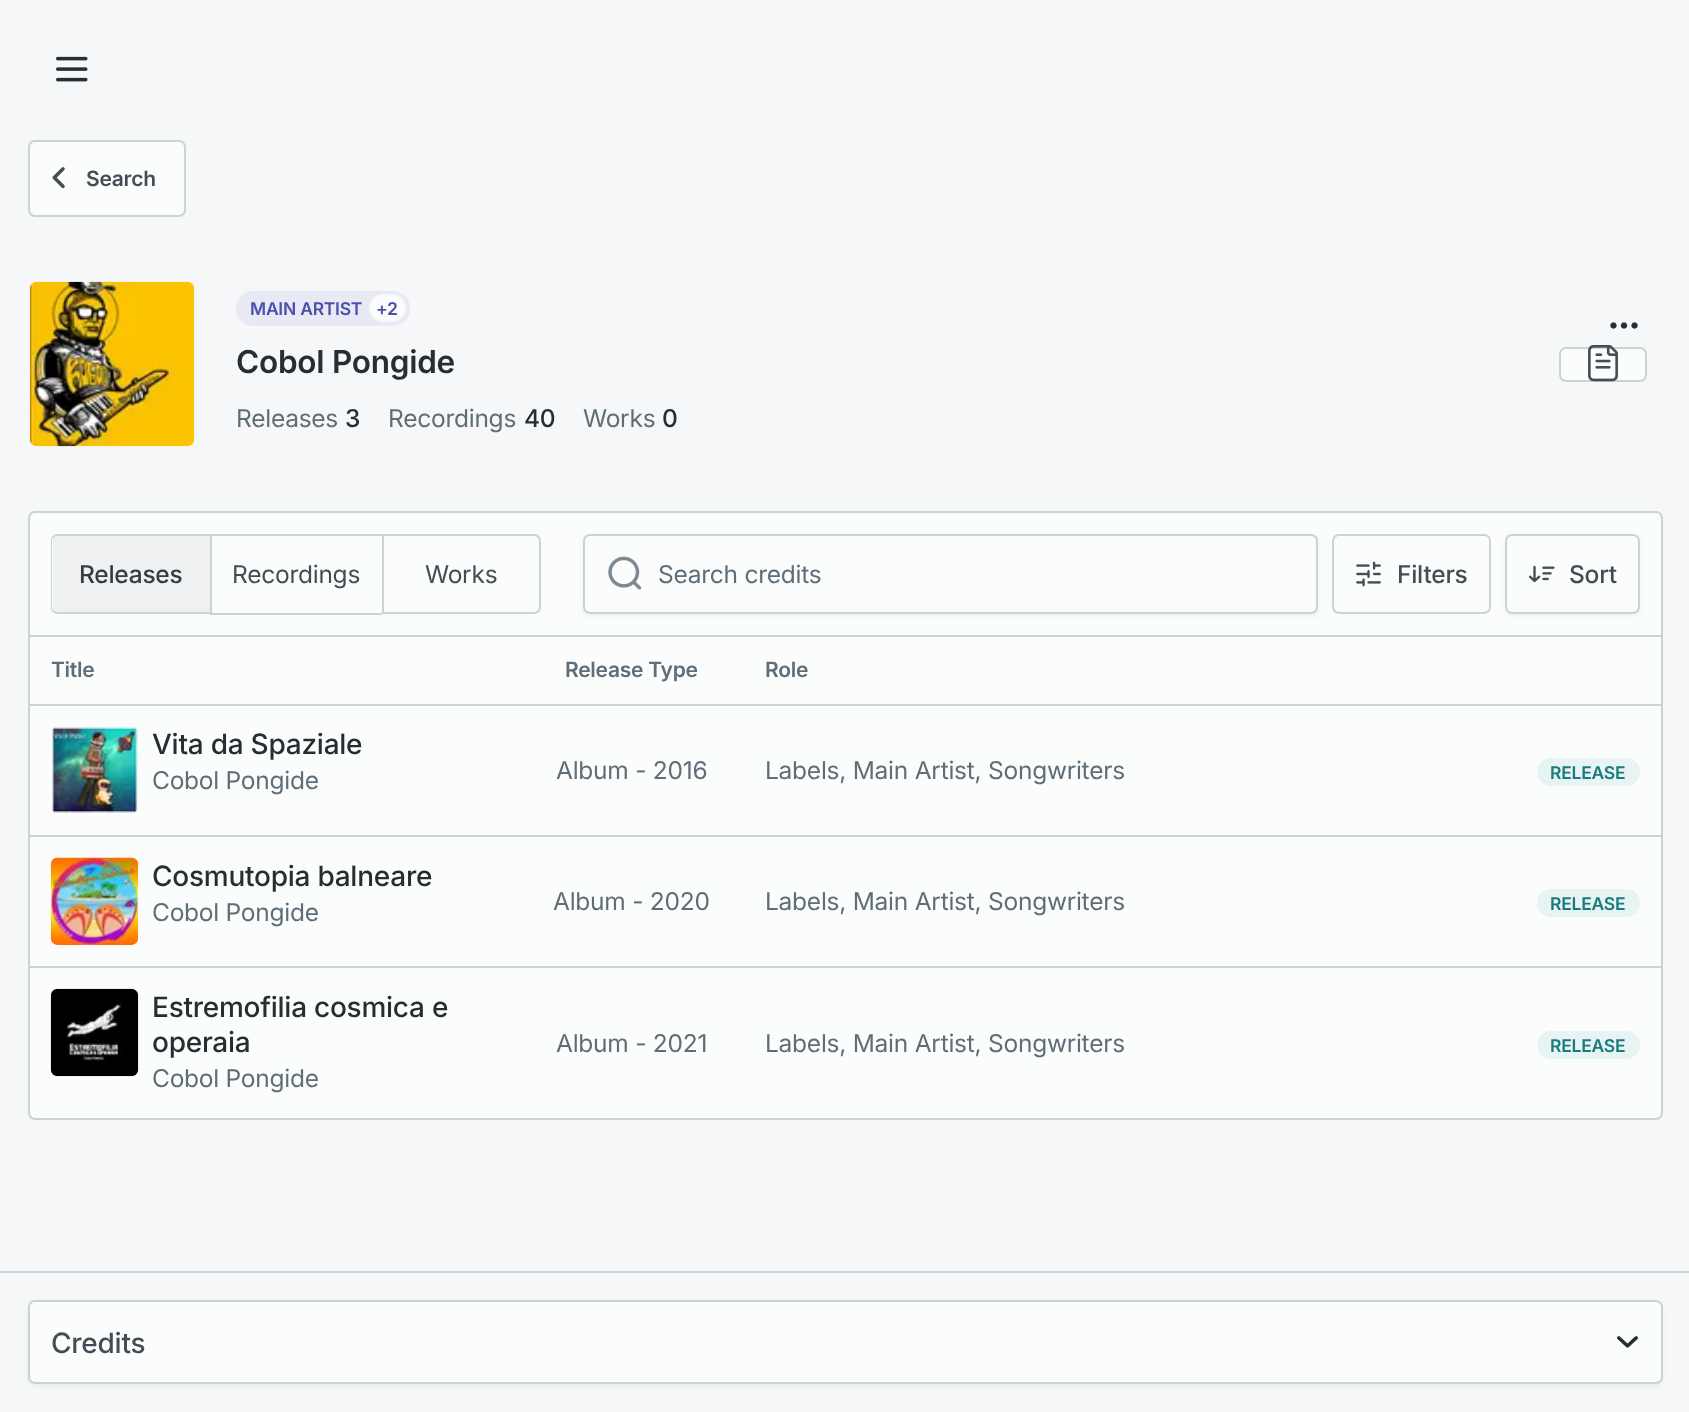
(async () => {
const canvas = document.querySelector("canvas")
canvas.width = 1689
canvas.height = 1412
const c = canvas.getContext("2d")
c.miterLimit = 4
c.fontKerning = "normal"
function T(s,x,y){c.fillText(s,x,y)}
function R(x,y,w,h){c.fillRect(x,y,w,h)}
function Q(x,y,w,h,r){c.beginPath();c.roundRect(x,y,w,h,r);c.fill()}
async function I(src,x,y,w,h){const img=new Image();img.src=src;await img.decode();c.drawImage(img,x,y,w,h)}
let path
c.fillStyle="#f5f7f8"
R(0,0,1689,1412)
await I("1.png",56,56,32,26)
c.fillStyle="#fbfdfd"
c.beginPath()
c.roundRect(29,141,156,75,6)
c.fill()
c.strokeStyle="#cdd2d5"
c.lineWidth=2
c.stroke()
await I("2.png",52,167,13,22)
c.letterSpacing="-0.25px"
c.font="600 21px Inter"
c.fillStyle="#434d54"
T("Search",86,186)
await I("3.png",29,281,166,166)
c.fillStyle="#e8e9f4"
Q(236,291,174,35,17.5)
c.font="600 17.5px Inter"
c.fillStyle="#4a51aa"
T("MAIN ARTIST",250,315)
c.fillStyle="#fbfdfd"
c.beginPath()
c.roundRect(370,295,35,26,13)
c.fill()
c.strokeStyle="#f6f8f9"
c.stroke()
c.fillStyle="#4a51aa"
T("+",376,315)
T("2",387,315)
c.font="600 31.5px Inter"
c.fillStyle="#272e32"
T("Cobol Pongide",236,373)
c.font="24.5px Inter"
c.fillStyle="#5e6d76"
T("Releases",236,427)
c.font="500 24.5px Inter"
c.fillStyle="#272e32"
T("3",345,427)
c.font="24.5px Inter"
c.fillStyle="#5e6d76"
T("Recordings",388,427)
c.font="500 24.5px Inter"
c.fillStyle="#272e32"
T("40",524,427)
c.font="24.5px Inter"
c.fillStyle="#5e6d76"
T("Works",583,427)
c.font="500 24.5px Inter"
c.fillStyle="#272e32"
T("0",662,427)
await I("4.png",1610,322,28,7)
c.fillStyle="#fbfdfd"
c.beginPath()
c.roundRect(1560,348,86,33,6)
c.fill()
c.strokeStyle="#cdd2d5"
c.stroke()
await I("5.png",1588,345,30,37)
c.beginPath()
c.roundRect(29,512,1633,607,6)
c.fill()
c.stroke()
c.fillStyle="#eff0f1"
c.beginPath()
c.roundRect(53,536,157,77,[5,0,0,5])
c.fill()
c.fillStyle="#cdd2d5"
path = new Path2D("M58 534h152v80h-152c-4 0-7-3-7-7v-66c0-4 3-7 7-7zm0 2h152v76h-152c-3 0-6-2-6-5v-66c0-3 3-5 6-5z")
c.fill(path,"evenodd")
c.fillStyle="#343c41"
T("Releases",79,583)
c.fillStyle="#cdd2d5"
R(210,534,172,2)
R(210,613,172,2)
R(210,534,2,80)
c.font="24.5px Inter"
c.fillStyle="#434d54"
T("Recordings",232,583)
c.beginPath()
c.roundRect(383,535,157,78,[0,6,6,0])
c.stroke()
T("Works",425,583)
c.fillStyle="#1018280d"
c.filter="blur(2px)"
c.beginPath()
c.rect(583,536,735,80)
c.fill()
c.filter="none"
c.fillStyle="#fbfdfd"
c.beginPath()
c.roundRect(584,535,733,78,6)
c.fill()
c.stroke()
await I("6.png",608,556,34,34)
c.fillStyle="#5e6d76"
T("Search credits",658,583)
c.beginPath()
c.roundRect(1333,535,157,78,6)
c.stroke()
await I("7.png",1356,561,25,26)
c.font="500 24.5px Inter"
c.fillStyle="#434d54"
T("Filters",1397,583)
c.fillStyle="#1018280d"
c.filter="blur(2px)"
c.beginPath()
c.roundRect(1505,536,135,80,7)
c.fill()
c.filter="none"
c.fillStyle="#fbfdfd"
c.beginPath()
c.roundRect(1506,535,133,78,6)
c.fill()
c.stroke()
await I("8.png",1528,565,27,18)
c.fillStyle="#434d54"
T("Sort",1569,583)
c.fillStyle="#cdd2d5"
R(30,635,1631,2)
c.font="600 21px Inter"
c.fillStyle="#5e6d76"
T("Title",51,677)
T("Release Type",565,677)
T("Role",765,677)
c.fillStyle="#cdd2d5"
R(30,704,1631,2)
await I("9.png",51,726,87,88)
c.font="500 28px Inter"
c.fillStyle="#272e32"
T("Vita da Spaziale",152,754)
c.font="24.5px Inter"
c.fillStyle="#5e6d76"
T("Cobol Pongide",152,789)
T("Album - 2016",556,779)
T("Labels, Main Artist, Songwriters",765,779)
c.fillStyle="#e8f3f3"
Q(1537,758,103,28,14)
c.font="600 17.5px Inter"
c.fillStyle="#187b7d"
T("RELEASE",1550,779)
c.fillStyle="#cdd2d5"
R(30,835,1631,2)
await I("10.png",50,857,89,88)
c.font="500 28px Inter"
c.fillStyle="#272e32"
T("Cosmutopia balneare",152,886)
c.font="24.5px Inter"
c.fillStyle="#5e6d76"
T("Cobol Pongide",152,921)
T("Album - 2020",553,910)
T("Labels, Main Artist, Songwriters",765,910)
c.fillStyle="#e8f3f3"
Q(1537,889,103,28,14)
c.font="600 17.5px Inter"
c.fillStyle="#187b7d"
T("RELEASE",1550,910)
c.fillStyle="#cdd2d5"
R(30,966,1631,2)
await I("11.png",50,988,89,89)
c.font="500 28px Inter"
c.fillStyle="#272e32"
T("Estremofilia cosmica e",152,1017)
T("operaia",152,1052)
c.font="24.5px Inter"
c.fillStyle="#5e6d76"
T("Cobol Pongide",152,1087)
T("Album - 2021",556,1052)
T("Labels, Main Artist, Songwriters",765,1052)
c.fillStyle="#e8f3f3"
Q(1537,1031,103,28,14)
c.font="600 17.5px Inter"
c.fillStyle="#187b7d"
T("RELEASE",1550,1052)
c.fillStyle="#cdd2d5"
R(0,1271,1689,2)
c.fillStyle="#1018280d"
c.filter="blur(2px)"
c.beginPath()
c.roundRect(28,1302,1635,84,7)
c.fill()
c.filter="none"
c.fillStyle="#fbfdfd"
c.beginPath()
c.roundRect(29,1301,1633,82,6)
c.fill()
c.stroke()
c.font="500 28px Inter"
c.fillStyle="#434d54"
T("Credits",51,1353)
await I("12.png",1617,1336,21,12)
})()
